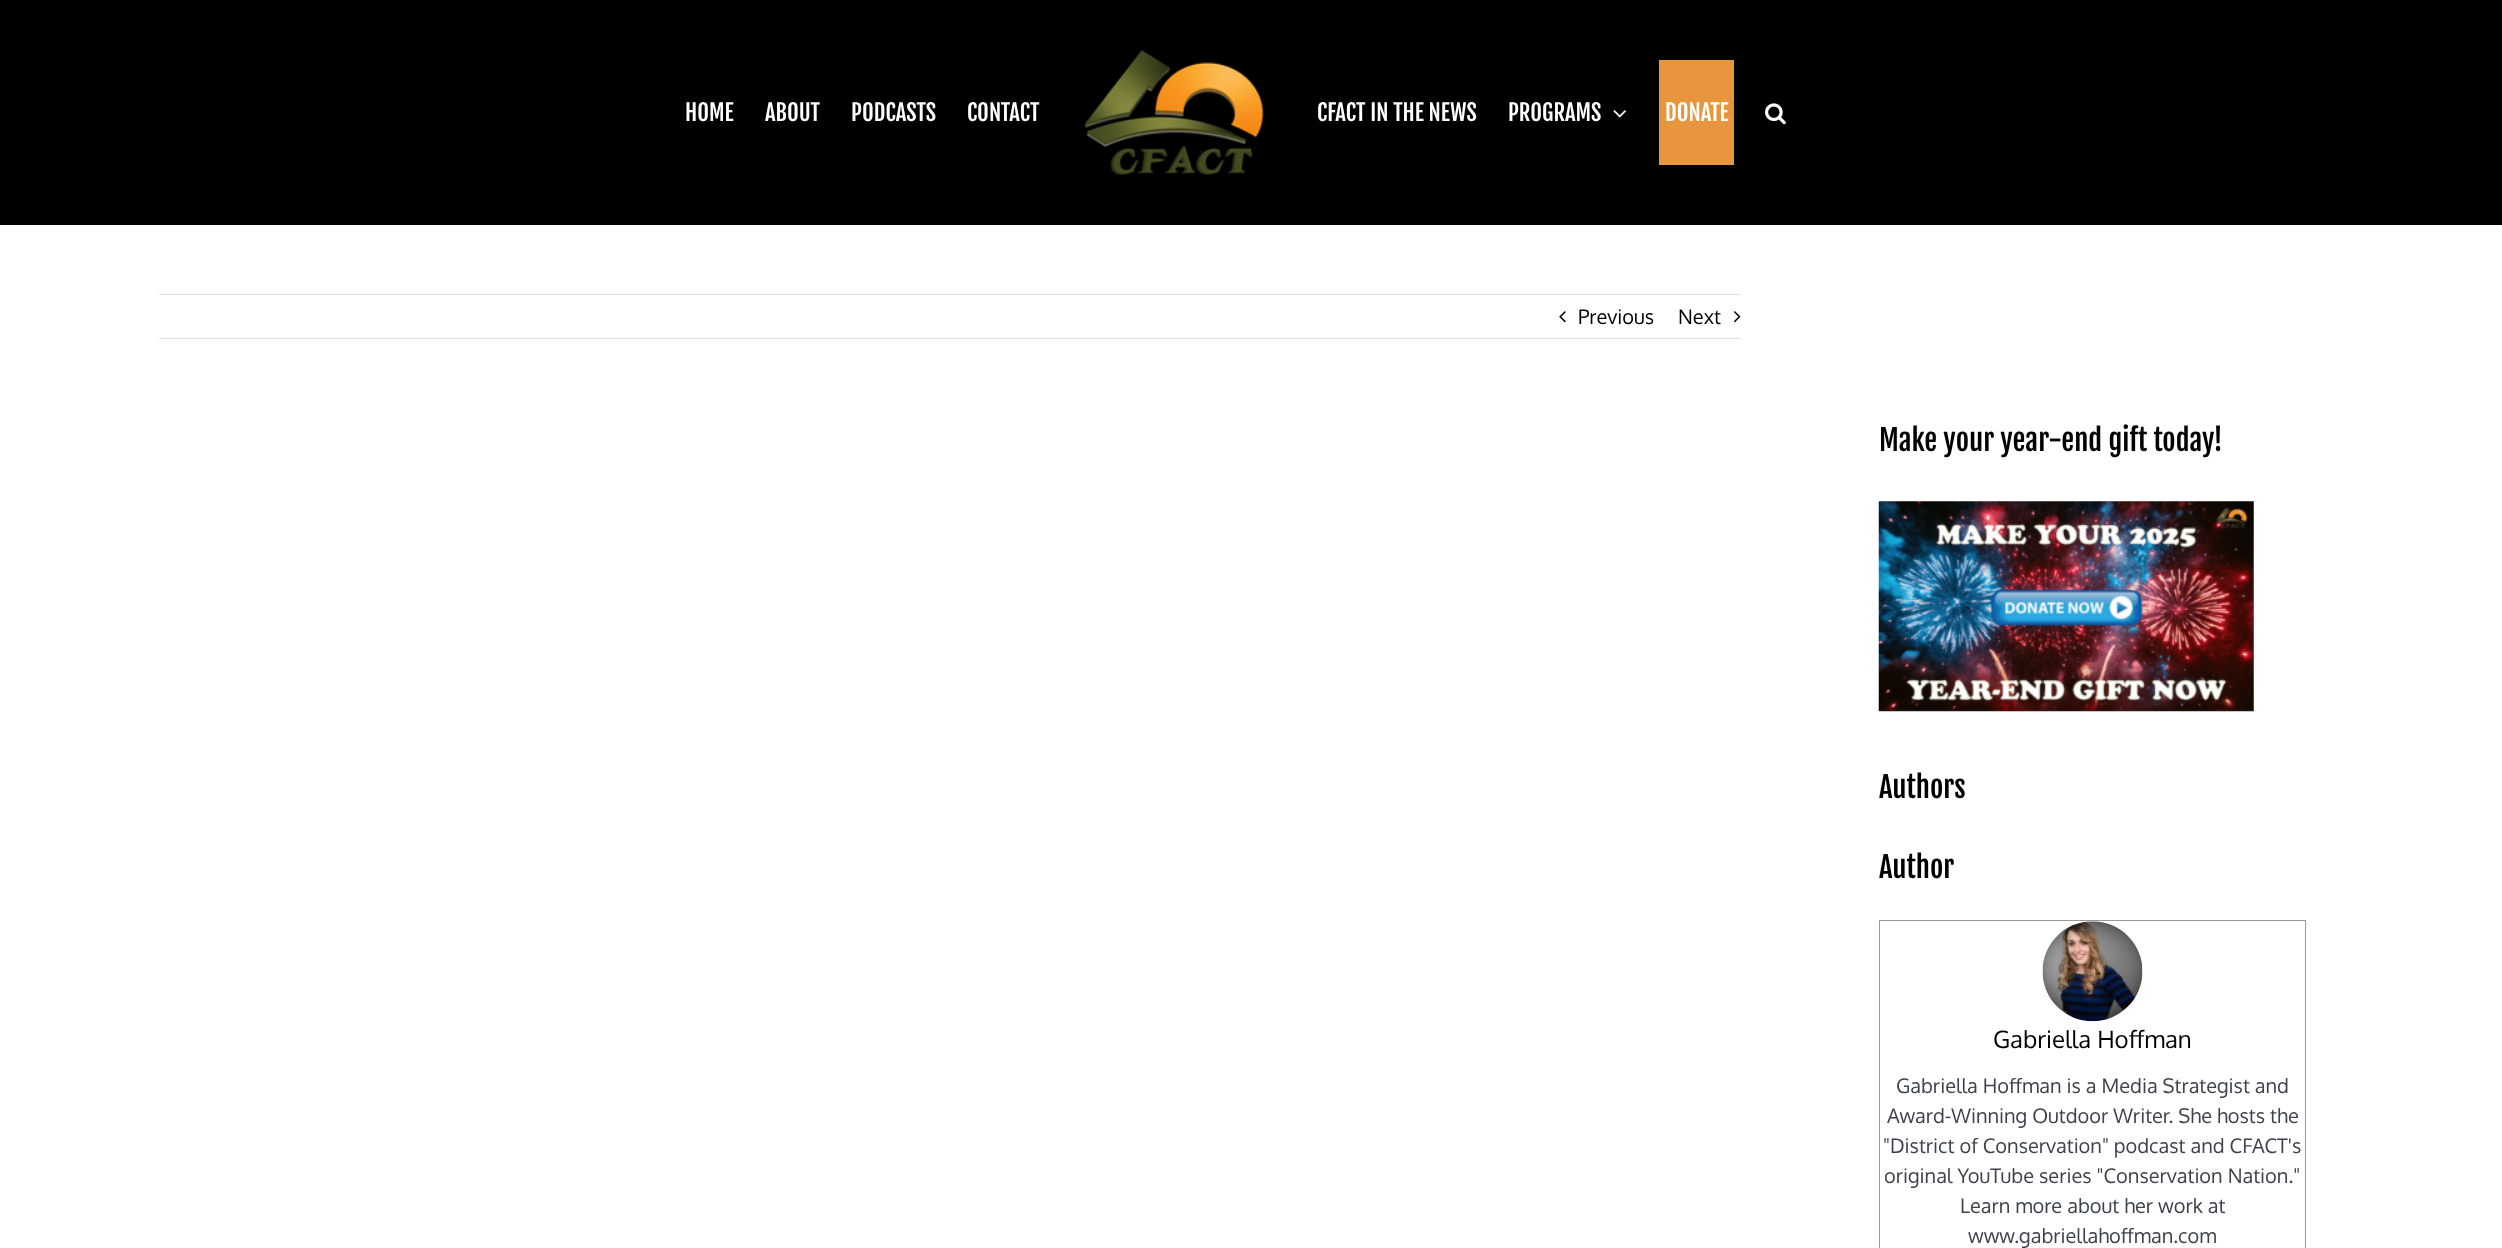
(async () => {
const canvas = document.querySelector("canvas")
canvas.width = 2502
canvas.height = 1248
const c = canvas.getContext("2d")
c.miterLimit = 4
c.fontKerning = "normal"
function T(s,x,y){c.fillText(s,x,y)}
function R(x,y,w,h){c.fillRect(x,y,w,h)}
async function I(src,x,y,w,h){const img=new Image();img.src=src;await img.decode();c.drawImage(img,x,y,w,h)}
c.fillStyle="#fff"
R(0,0,2502,1248)
c.fillStyle="#000"
R(0,0,2502,225)
c.font="22.5px Fjalla One"
c.fillStyle="#fff"
T("HOME",685,121)
T("ABOUT",765,121)
T("PODCASTS",851,121)
T("CONTACT",967,121)
await I("1.png",1084,50,181,125)
T("CFACT IN THE NEWS",1317,121)
T("PROGRAMS",1508,121)
await I("2.png",1613,110,13,8)
c.fillStyle="#e8963e"
R(1659,60,75,105)
c.fillStyle="#fff"
T("DONATE",1665,121)
await I("3.png",1765,103,21,22)
c.fillStyle="#e0dede"
R(159,294,1582,1)
R(159,338,1582,1)
await I("4.png",1559,311,7,12)
c.font="20px Oxygen"
c.fillStyle="#000"
T("Previous",1578,324)
T("Next",1678,324)
await I("5.png",1733,311,8,12)
c.font="28.75px Fjalla One"
T("Make your year-end gift today!",1879,451)
await I("6.png",1878,501,376,211)
T("Authors",1879,798)
T("Author",1879,878)
c.strokeStyle="#999"
c.strokeRect(1879.5,920.5,426,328)
await I("7.png",2042,921,101,101)
c.font="24px Oxygen"
T("Gabriella Hoffman",1993,1048)
c.font="20px Oxygen"
c.fillStyle="#3c434a"
T("Gabriella Hoffman is a Media Strategist and",1896,1093)
T("Award-Winning Outdoor Writer. She hosts the",1887,1123)
T("\"District of Conservation\" podcast and CFACT's",1883,1153)
T("original YouTube series \"Conservation Nation.\"",1884,1183)
T("Learn more about her work at",1960,1213)
T("www.gabriellahoffman.com",1968,1243)
})()
